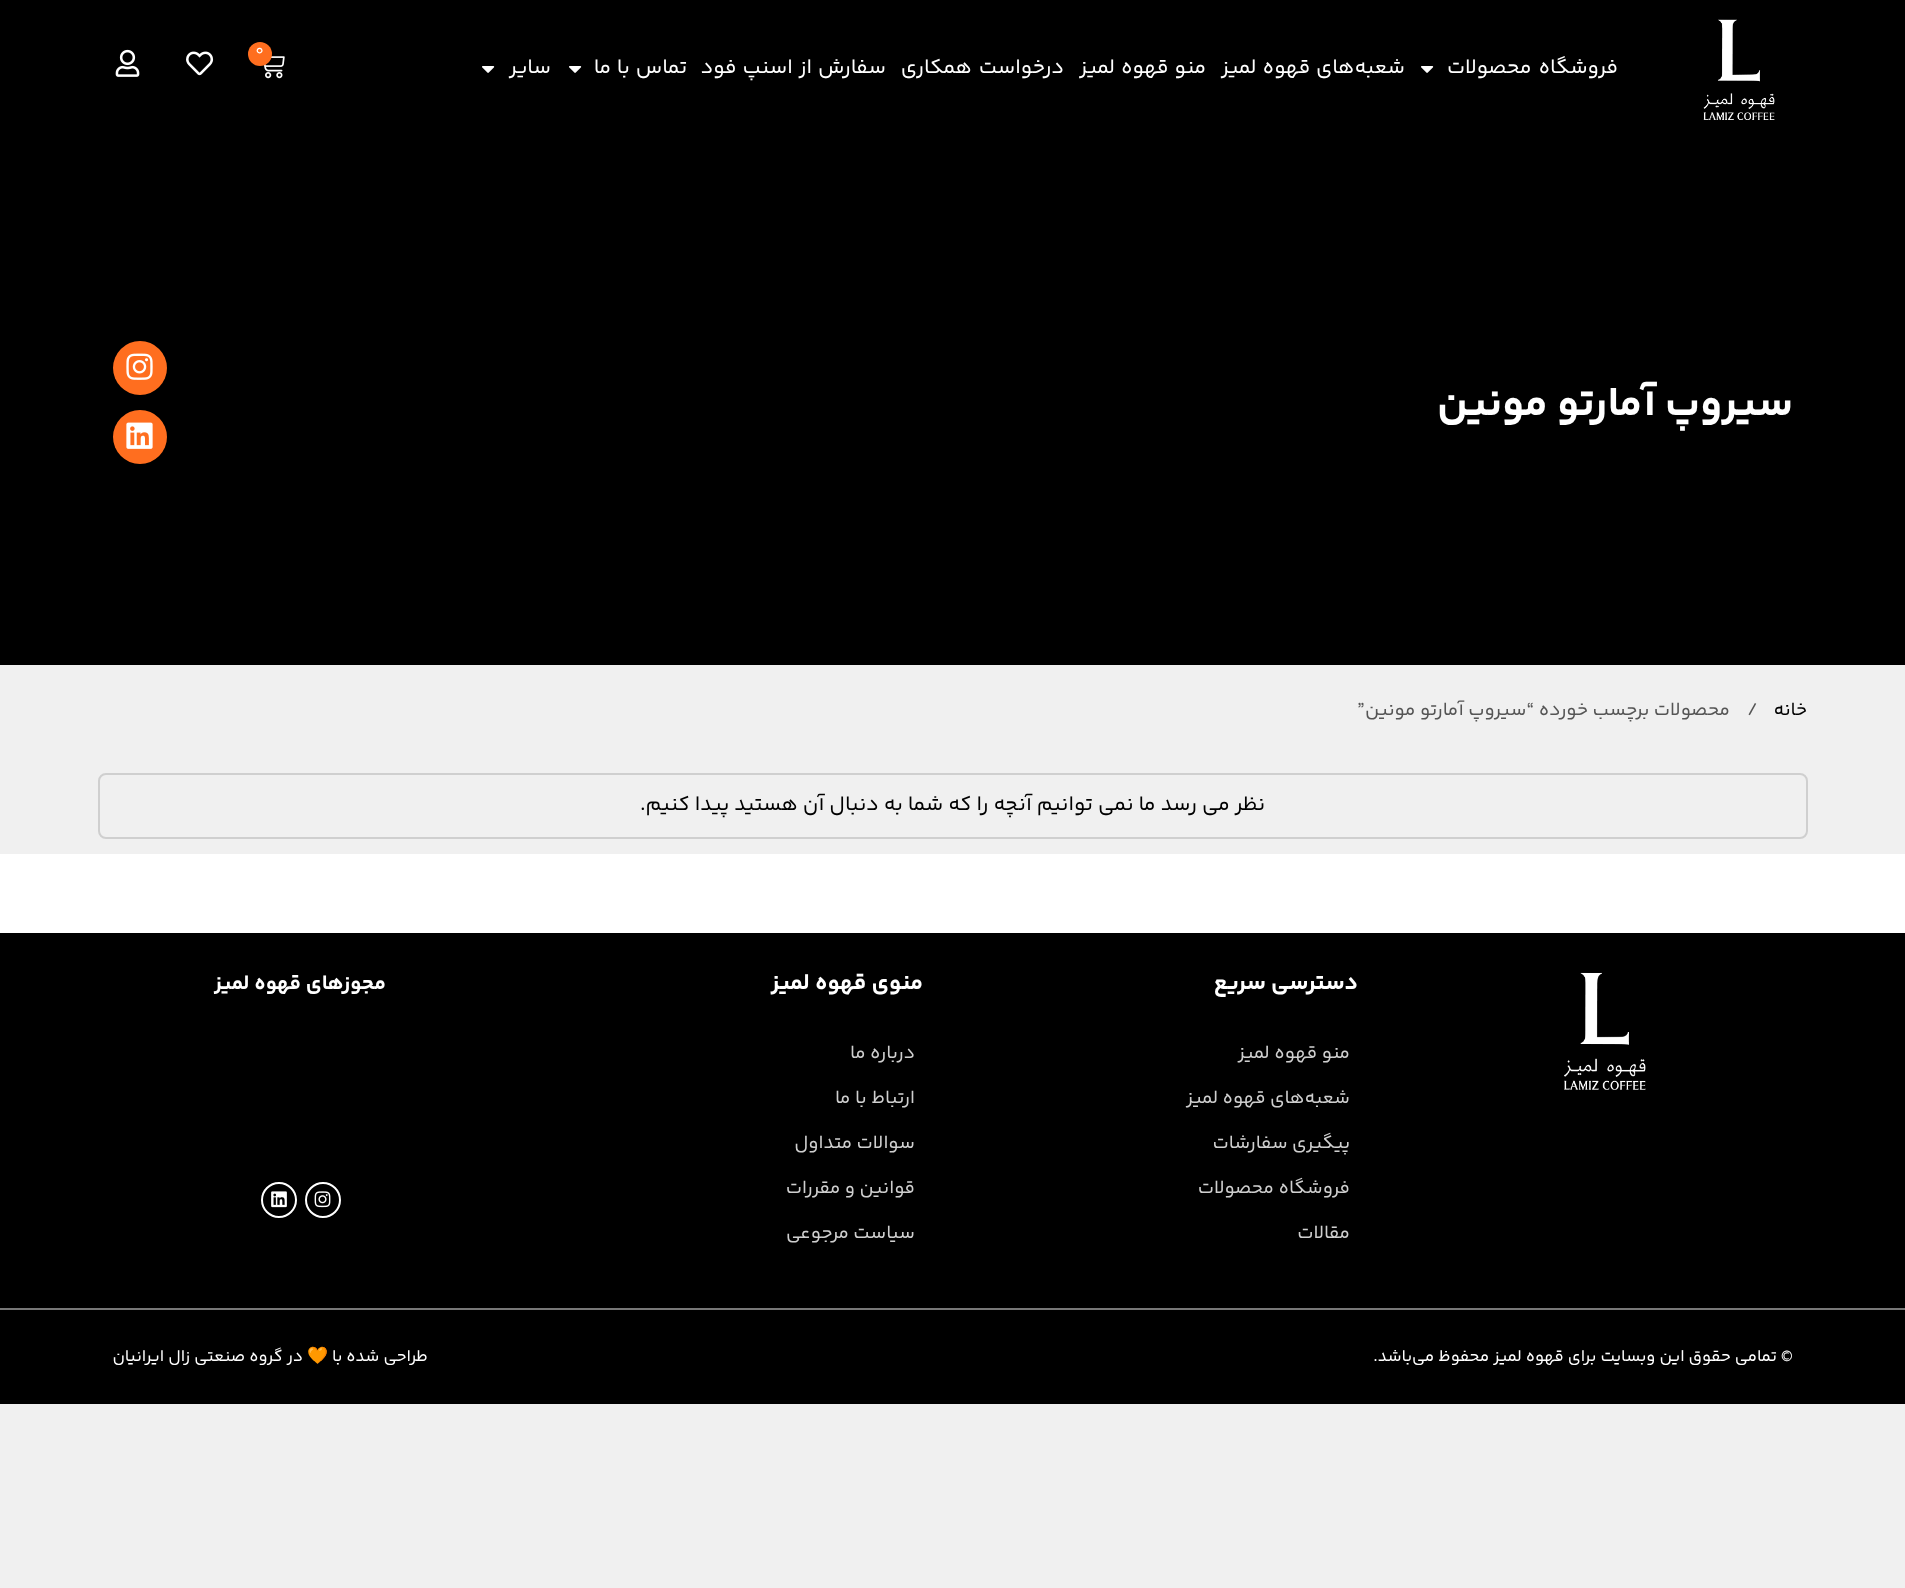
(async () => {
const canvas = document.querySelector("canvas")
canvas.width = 1905
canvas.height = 1588
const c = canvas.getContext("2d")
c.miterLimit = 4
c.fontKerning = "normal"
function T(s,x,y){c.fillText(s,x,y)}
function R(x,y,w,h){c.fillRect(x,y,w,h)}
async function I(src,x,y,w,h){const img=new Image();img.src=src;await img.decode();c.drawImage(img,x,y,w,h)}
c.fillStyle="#f0f0f0"
R(0,0,1905,1588)
c.fillStyle="#000"
R(0,0,1905,665)
await I("1.png",1703,19,72,101)
await I("2.png",263,56,22,23)
c.fillStyle="#ff6e1f"
c.beginPath()
c.arc(260,54,12,0,7)
c.fill()
c.font="15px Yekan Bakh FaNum"
c.fillStyle="#fff"
T("0",255,55)
await I("3.png",186,51,28,25)
await I("4.png",115,49,25,28)
c.letterSpacing="-0.1px"
c.wordSpacing="2px"
c.direction="rtl"
c.font="21px Yekan Bakh FaNum"
T("فروشگاه محصولات",1618,73)
await I("5.png",1421,66,13,7)
c.wordSpacing="1px"
T("شعبه‌های قهوه لمیز",1405,73)
T("منو قهوه لمیز",1206,73)
c.wordSpacing="2px"
T("درخواست همکاری",1064,73)
c.wordSpacing="1px"
T("سفارش از اسنپ فود",886,73)
T("تماس با ما",687,73)
await I("5.png",569,66,13,7)
c.wordSpacing="0px"
T("سایر",551,73)
await I("5.png",482,66,13,7)
R(0,854,1905,79)
c.letterSpacing="0px"
c.font="bold 42px Yekan Bakh FaNum"
T("سیروپ آمارتو مونین",1793,415)
c.fillStyle="#ff6e1f"
c.beginPath()
c.arc(140,368,27,0,7)
c.fill()
await I("6.png",126,353,27,27)
c.beginPath()
c.arc(140,437,27,0,7)
c.fill()
await I("7.png",126,422,27,27)
c.font="18.9px Yekan Bakh FaNum"
c.fillStyle="#000"
T("خانه",1807,715)
c.direction="ltr"
c.fillStyle="#555"
T("/",1747,715)
c.direction="rtl"
T("محصولات برچسب خورده “سیروپ آمارتو مونین”",1730,715)
c.beginPath()
c.roundRect(99,774,1708,64,7)
c.strokeStyle="#cfcfcf"
c.lineWidth=2
c.stroke()
c.font="21px Yekan Bakh FaNum"
c.fillStyle="#000"
T("نظر می رسد ما نمی توانیم آنچه را که شما به دنبال آن هستید پیدا کنیم.",1265,810)
R(0,933,1905,375)
await I("8.png",1564,972,82,118)
c.font="bold 23px Yekan Bakh FaNum"
c.fillStyle="#fff"
T("دسترسی سریع",1358,989)
c.font="18.9px Yekan Bakh FaNum"
c.fillStyle="#cfcfcf"
T("منو قهوه لمیز",1350,1058)
T("شعبه‌های قهوه لمیز",1350,1103)
T("پیگیری سفارشات",1350,1148)
T("فروشگاه محصولات",1350,1193)
T("مقالات",1350,1238)
c.font="bold 23px Yekan Bakh FaNum"
c.fillStyle="#fff"
T("منوی قهوه لمیز",923,989)
c.font="18.9px Yekan Bakh FaNum"
c.fillStyle="#cfcfcf"
T("درباره ما",915,1058)
T("ارتباط با ما",915,1103)
T("سوالات متداول",915,1148)
T("قوانین و مقررات",915,1193)
T("سیاست مرجوعی",915,1238)
c.font="bold 21px Yekan Bakh FaNum"
c.fillStyle="#fff"
T("مجوزهای قهوه لمیز",386,989)
c.beginPath()
c.arc(323,1200,17,0,7)
c.strokeStyle="#fff"
c.stroke()
await I("9.png",314,1191,17,17)
c.beginPath()
c.arc(279,1200,17,0,7)
c.stroke()
await I("10.png",271,1191,16,17)
c.fillStyle="#000"
R(0,1310,1905,94)
c.fillStyle="#777"
R(0,1308,1905,2)
c.font="16.8px Yekan Bakh FaNum"
c.fillStyle="#fff"
T("© تمامی حقوق این وبسایت برای قهوه لمیز محفوظ می‌باشد.",1793,1361)
T("طراحی شده با",428,1361)
c.font="16.8px Noto Color Emoji"
T("🧡",328,1361)
c.font="16.8px Yekan Bakh FaNum"
T("در گروه صنعتی زال ایرانیان",303,1361)
})()
